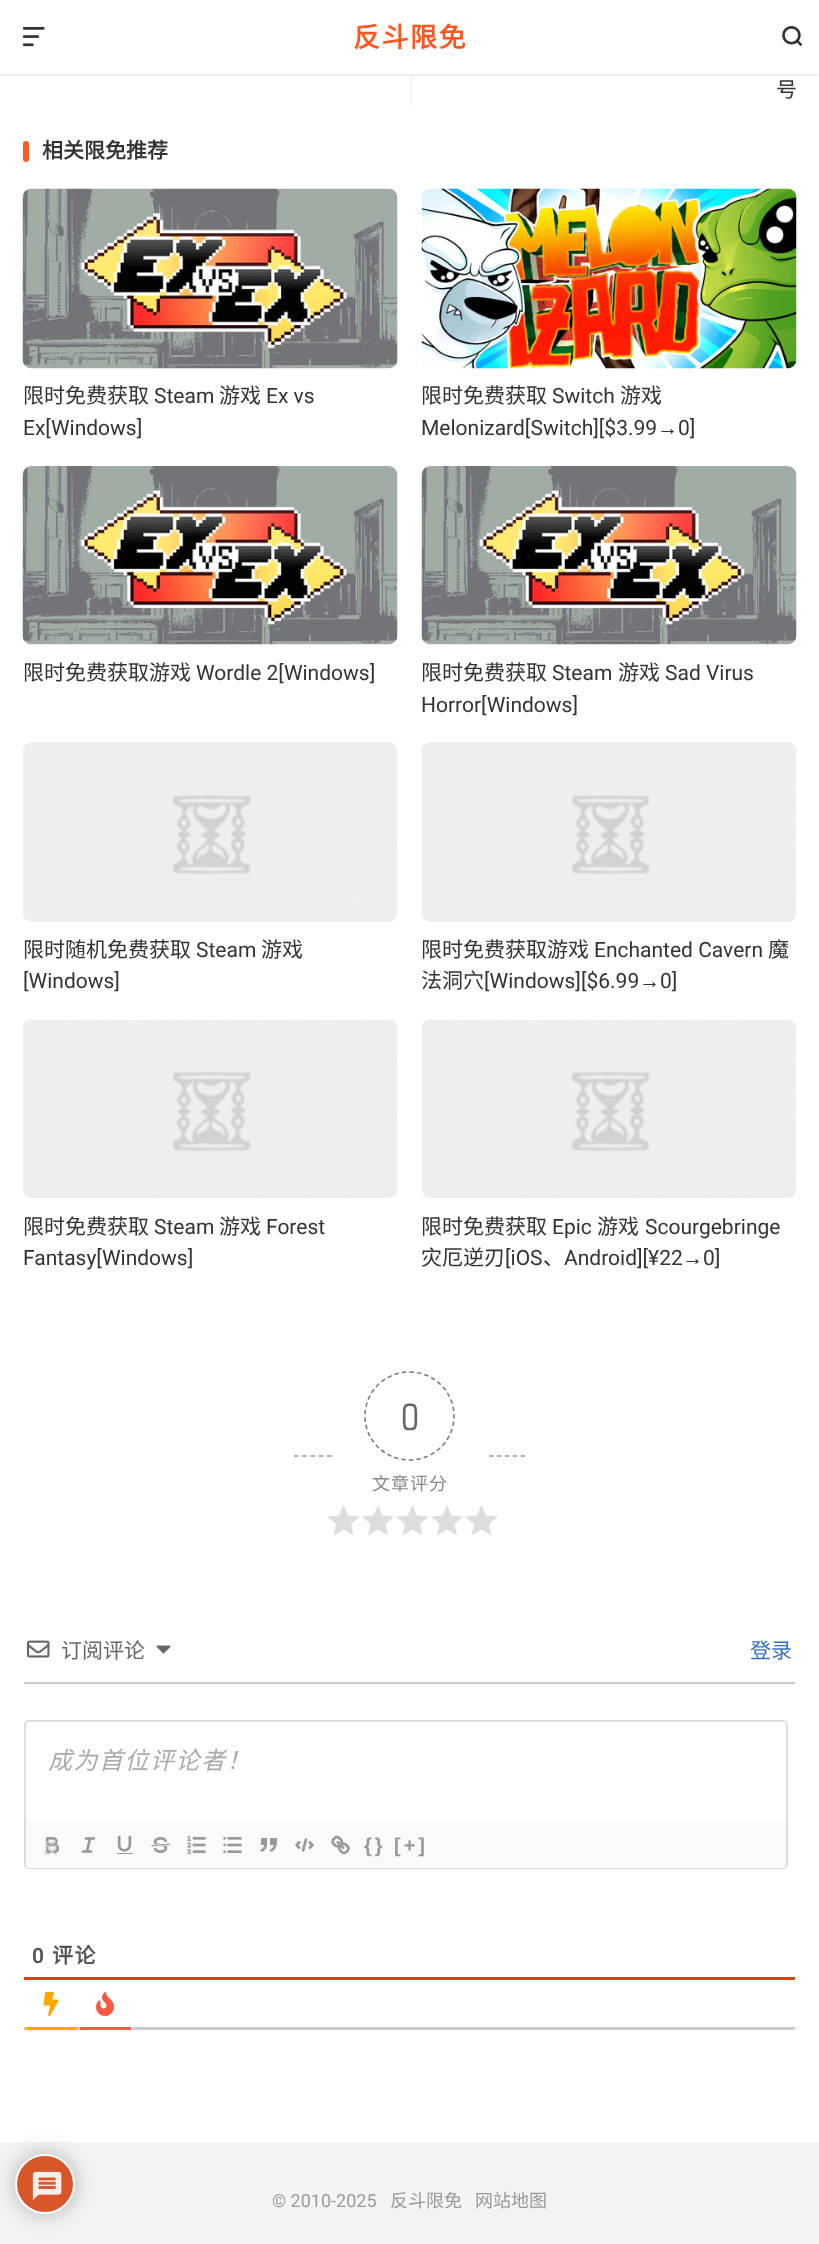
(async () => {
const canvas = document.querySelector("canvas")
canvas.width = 819
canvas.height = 2244
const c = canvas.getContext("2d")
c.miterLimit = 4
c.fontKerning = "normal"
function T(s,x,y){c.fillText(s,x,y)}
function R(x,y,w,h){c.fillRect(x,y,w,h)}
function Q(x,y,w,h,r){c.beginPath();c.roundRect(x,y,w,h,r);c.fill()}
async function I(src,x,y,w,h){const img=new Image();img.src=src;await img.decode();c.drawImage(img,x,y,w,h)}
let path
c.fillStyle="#f4f4f4"
R(0,0,819,2244)
c.fillStyle="#fff"
R(0,0,819,2142)
await I("1.png",22,27,23,20)
c.letterSpacing="1.5px"
c.font="bold 27px Noto Sans CJK SC"
c.fillStyle="#ff5722"
T("反斗限免",353,47)
await I("2.png",782,26,21,20)
c.fillStyle="#eee"
Q(0,74,819,2,1)
c.fillStyle="#f3f3f3"
R(410,76,2,29)
c.letterSpacing="0px"
c.font="21px Noto Sans CJK SC"
c.fillStyle="#333"
T("号",776,97)
c.fillStyle="#ff5722"
Q(23,141,6,21,3)
c.font="bold 21px Noto Sans CJK SC"
c.fillStyle="#333"
T("相关限免推荐",42,158)
await I("3.png",22,188,376,181)
c.font="21px Noto Sans CJK SC"
T("限时免费获取",23,403)
c.font="21px Roboto"
T("Steam",154,403)
c.font="21px Noto Sans CJK SC"
T("游戏",219,403)
c.font="21px Roboto"
T("Ex vs",266,403)
T("Ex[Windows]",23,435)
await I("4.png",421,188,376,181)
c.font="21px Noto Sans CJK SC"
T("限时免费获取",421,403)
c.font="21px Roboto"
T("Switch",552,403)
c.font="21px Noto Sans CJK SC"
T("游戏",620,403)
c.font="21px Roboto"
T("Melonizard[Switch][$3.99",421,435)
c.font="21px Liberation Sans"
T("→",657,435)
c.font="21px Roboto"
T("0]",678,435)
await I("5.png",22,466,376,179)
c.font="21px Noto Sans CJK SC"
T("限时免费获取游戏",23,680)
c.font="21px Roboto"
T("Wordle 2[Windows]",196,680)
await I("6.png",421,466,376,179)
c.font="21px Noto Sans CJK SC"
T("限时免费获取",421,680)
c.font="21px Roboto"
T("Steam",552,680)
c.font="21px Noto Sans CJK SC"
T("游戏",618,680)
c.font="21px Roboto"
T("Sad Virus",665,680)
T("Horror[Windows]",421,712)
await I("7.png",22,742,376,180)
c.font="21px Noto Sans CJK SC"
T("限时随机免费获取",23,957)
c.font="21px Roboto"
T("Steam",196,957)
c.font="21px Noto Sans CJK SC"
T("游戏",261,957)
c.font="21px Roboto"
T("[Windows]",23,988)
await I("7.png",421,742,376,180)
c.font="21px Noto Sans CJK SC"
T("限时免费获取游戏",421,957)
c.font="21px Roboto"
T("Enchanted Cavern",594,957)
c.font="21px Noto Sans CJK SC"
T("魔",768,957)
T("法洞穴",421,988)
c.font="21px Roboto"
T("[Windows][$6.99",484,988)
c.font="21px Liberation Sans"
T("→",639,988)
c.font="21px Roboto"
T("0]",660,988)
await I("8.png",22,1019,376,179)
c.font="21px Noto Sans CJK SC"
T("限时免费获取",23,1234)
c.font="21px Roboto"
T("Steam",154,1234)
c.font="21px Noto Sans CJK SC"
T("游戏",219,1234)
c.font="21px Roboto"
T("Forest",266,1234)
T("Fantasy[Windows]",23,1265)
await I("8.png",421,1019,376,179)
c.font="21px Noto Sans CJK SC"
T("限时免费获取",421,1234)
c.font="21px Roboto"
T("Epic",552,1234)
c.font="21px Noto Sans CJK SC"
T("游戏",597,1234)
c.font="21px Roboto"
T("Scourgebringe",645,1234)
c.font="21px Noto Sans CJK SC"
T("灾厄逆刃",421,1265)
c.font="21px Roboto"
T("[iOS",505,1265)
c.font="21px Noto Sans CJK SC"
T("、",543,1265)
c.font="21px Roboto"
T("Android][¥22",564,1265)
c.font="21px Liberation Sans"
T("→",682,1265)
c.font="21px Roboto"
T("0]",703,1265)
path = new Path2D("M294 1456h37.5")
c.strokeStyle="#999"
c.lineWidth=1.5
c.setLineDash([4.5,3.75])
c.stroke(path)
path = new Path2D("M409.5 1372c24.5 0 44.5 19.5 44.5 44c0 24.5-20 44-44.5 44c-24.5 0-44.5-19.5-44.5-44c0-24.5 20-44 44.5-44z")
c.strokeStyle="#777"
c.setLineDash([4.5,3])
c.stroke(path)
c.font="36px 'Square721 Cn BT'"
c.fillStyle="#666"
T("0",401,1430)
c.letterSpacing="1px"
c.font="18px Noto Sans CJK SC"
c.fillStyle="#888"
T("文章评分",372,1490)
c.fillStyle="#ddd"
path = new Path2D("M343.5 1529.5l10 6l-2.5-11.5l9-7.5l-12-1l-4.5-10.5l-4.5 10.5l-12 1l9 7.5l-2.5 11.5z")
c.fill(path)
path = new Path2D("M378 1529.5l10 6l-2.5-11.5l8.5-7.5l-11.5-1l-4.5-10.5l-4.5 10.5l-11.5 1l8.5 7.5l-2.5 11.5z")
c.fill(path)
path = new Path2D("M412.5 1529.5l10 6l-2.5-11.5l9-7.5l-12-1l-4.5-10.5l-4.5 10.5l-12 1l9 7.5l-2.5 11.5z")
c.fill(path)
path = new Path2D("M447 1529.5l10 6l-2.5-11.5l8.5-7.5l-11.5-1l-4.5-10.5l-4.5 10.5l-11.5 1l8.5 7.5l-2.5 11.5z")
c.fill(path)
path = new Path2D("M481.5 1529.5l10 6l-2.5-11.5l9-7.5l-12-1l-4.5-10.5l-4.5 10.5l-12 1l9 7.5l-2.5 11.5z")
c.fill(path)
path = new Path2D("M489 1456h36")
c.strokeStyle="#999"
c.setLineDash([4.5,3.38])
c.stroke(path)
c.fillStyle="#ccc"
R(24,1682,771,2)
await I("9.png",27,1640,23,18)
c.letterSpacing="0px"
c.font="21px Noto Sans CJK SC"
c.fillStyle="#666"
T("订阅评论",61,1658)
await I("10.png",156,1645,15,9)
c.fillStyle="#3272bf"
T("登录",750,1658)
c.fillStyle="#ddd"
path = new Path2D("M28 1720h755c2 0 5 3 5 5v95h-764v-95c0-2 2-5 4-5zm0 2h755c2 0 3 1 3 3v95h-760v-95c0-2 1-3 2-3z")
c.fill(path,"evenodd")
c.letterSpacing="1.5px"
c.font="italic 24px Noto Sans CJK SC"
c.fillStyle="#aaa"
T("成为首位评论者！",48,1769)
c.fillStyle="#fafafa"
c.beginPath()
c.roundRect(24,1820,764,49,[0,0,5,5])
c.fill()
c.fillStyle="#ddd"
path = new Path2D("M24 1820h764v44c0 3-3 5-5 5h-755c-2 0-4-2-4-5zm2 0h760v44c0 2-1 4-3 4h-755c-1 0-2-2-2-4z")
c.fill(path,"evenodd")
await I("11.png",45,1837,15,16)
path = new Path2D("M86 1838.5h8m-11 13h8m-4 0l3-13")
c.lineWidth=2.7
c.lineCap="round"
c.lineJoin="round"
c.setLineDash([])
c.stroke(path)
await I("12.png",117,1835,16,19)
await I("13.png",151,1837,19,16)
await I("14.png",187,1835,19,20)
await I("15.png",223,1837,19,16)
await I("16.png",260,1838,17,14)
await I("17.png",295,1838,19,14)
await I("18.png",331,1835,19,20)
c.letterSpacing="3px"
c.font="bold 20px Liberation Sans"
c.fillStyle="#999"
T("{}",364,1852)
T("[+]",394,1852)
c.fillStyle="#ccc"
R(24,2027,771,3)
c.fillStyle="#ffa600"
R(26,2027,51,3)
c.letterSpacing="0px"
c.font="16px Noto Sans CJK SC"
c.fillStyle="#d1d1d1"
T("反",43,1854)
await I("19.png",43,1992,16,24)
c.fillStyle="#fc5844"
R(80,2027,51,3)
await I("20.png",96,1992,18,24)
c.fillStyle="#d64314"
R(24,1977,771,3)
c.letterSpacing="1.5px"
c.font="600 21px Roboto"
c.fillStyle="#555"
T("0",32,1963)
c.font="bold 21px Noto Sans CJK SC"
T("评论",52,1963)
c.fillStyle="#aaaaaae6"
c.filter="blur(11px)"
c.beginPath()
c.roundRect(15,2154,60,60,30)
c.fill()
c.filter="none"
c.fillStyle="#d9552a"
c.beginPath()
c.arc(45,2184,29,0,7)
c.fill()
c.strokeStyle="#fefefe"
c.lineWidth=2
c.stroke()
await I("21.png",32,2171,30,30)
c.letterSpacing="0px"
c.font="18px Roboto"
c.fillStyle="#999"
T("© 2010-2025",272,2207)
c.font="18px Noto Sans CJK SC"
T("反斗限免",390,2207)
T("网站地图",475,2207)
})()
